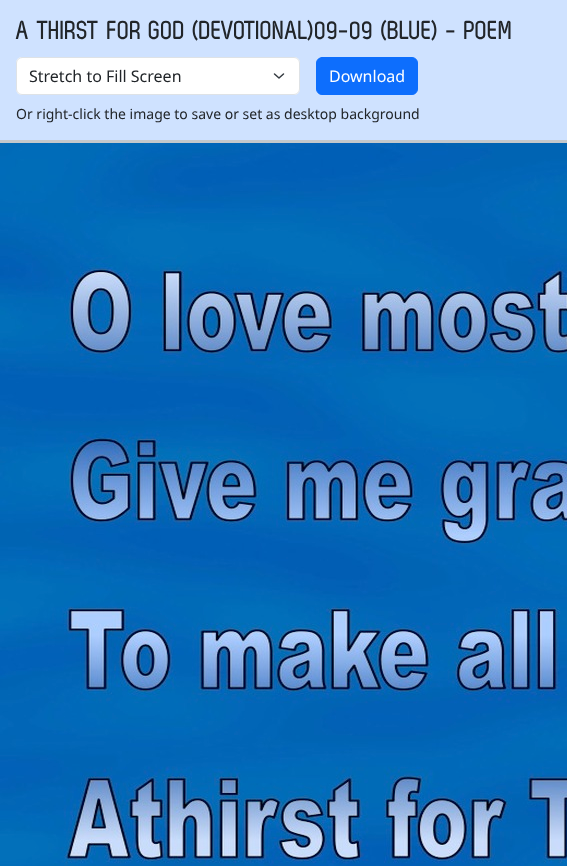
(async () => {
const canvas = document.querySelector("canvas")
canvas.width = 567
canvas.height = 866
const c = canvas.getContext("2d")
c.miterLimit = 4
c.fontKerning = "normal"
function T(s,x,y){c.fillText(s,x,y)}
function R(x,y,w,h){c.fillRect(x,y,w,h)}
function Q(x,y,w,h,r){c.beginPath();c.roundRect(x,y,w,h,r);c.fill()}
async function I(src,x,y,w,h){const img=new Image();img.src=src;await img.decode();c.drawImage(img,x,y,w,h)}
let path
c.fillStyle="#cfe2ff"
R(0,0,567,866)
c.fillStyle="#c4c8cb"
R(0,140,567,3)
c.font="bold 26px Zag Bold"
c.fillStyle="#212529"
T("A THIRST FOR GOD (DEVOTIONAL)09-09 (BLUE) - POEM",16,39)
c.fillStyle="#fff"
Q(16,57,284,38,6)
path = new Path2D("M274.5 74l4.5 4l4.5-4")
c.strokeStyle="#343a40"
c.lineWidth=1.5
c.lineCap="round"
c.lineJoin="round"
c.stroke(path)
c.beginPath()
c.roundRect(16.5,57.5,283,37,5.5)
c.strokeStyle="#dee2e6"
c.lineWidth=1
c.lineJoin="miter"
c.stroke()
c.font="16px Noto Sans"
c.fillStyle="#212529"
T("Stretch to Fill Screen",29,82)
c.fillStyle="#0d6efd"
c.beginPath()
c.roundRect(316.5,57.5,101,37,5.5)
c.fill()
c.strokeStyle="#0d6efd"
c.stroke()
c.fillStyle="#fff"
T("Download",329,82)
c.font="14px Noto Sans"
c.fillStyle="#212529"
T("Or right-click the image to save or set as desktop background",16,119)
await I("1.png",0,143,567,723)
})()
